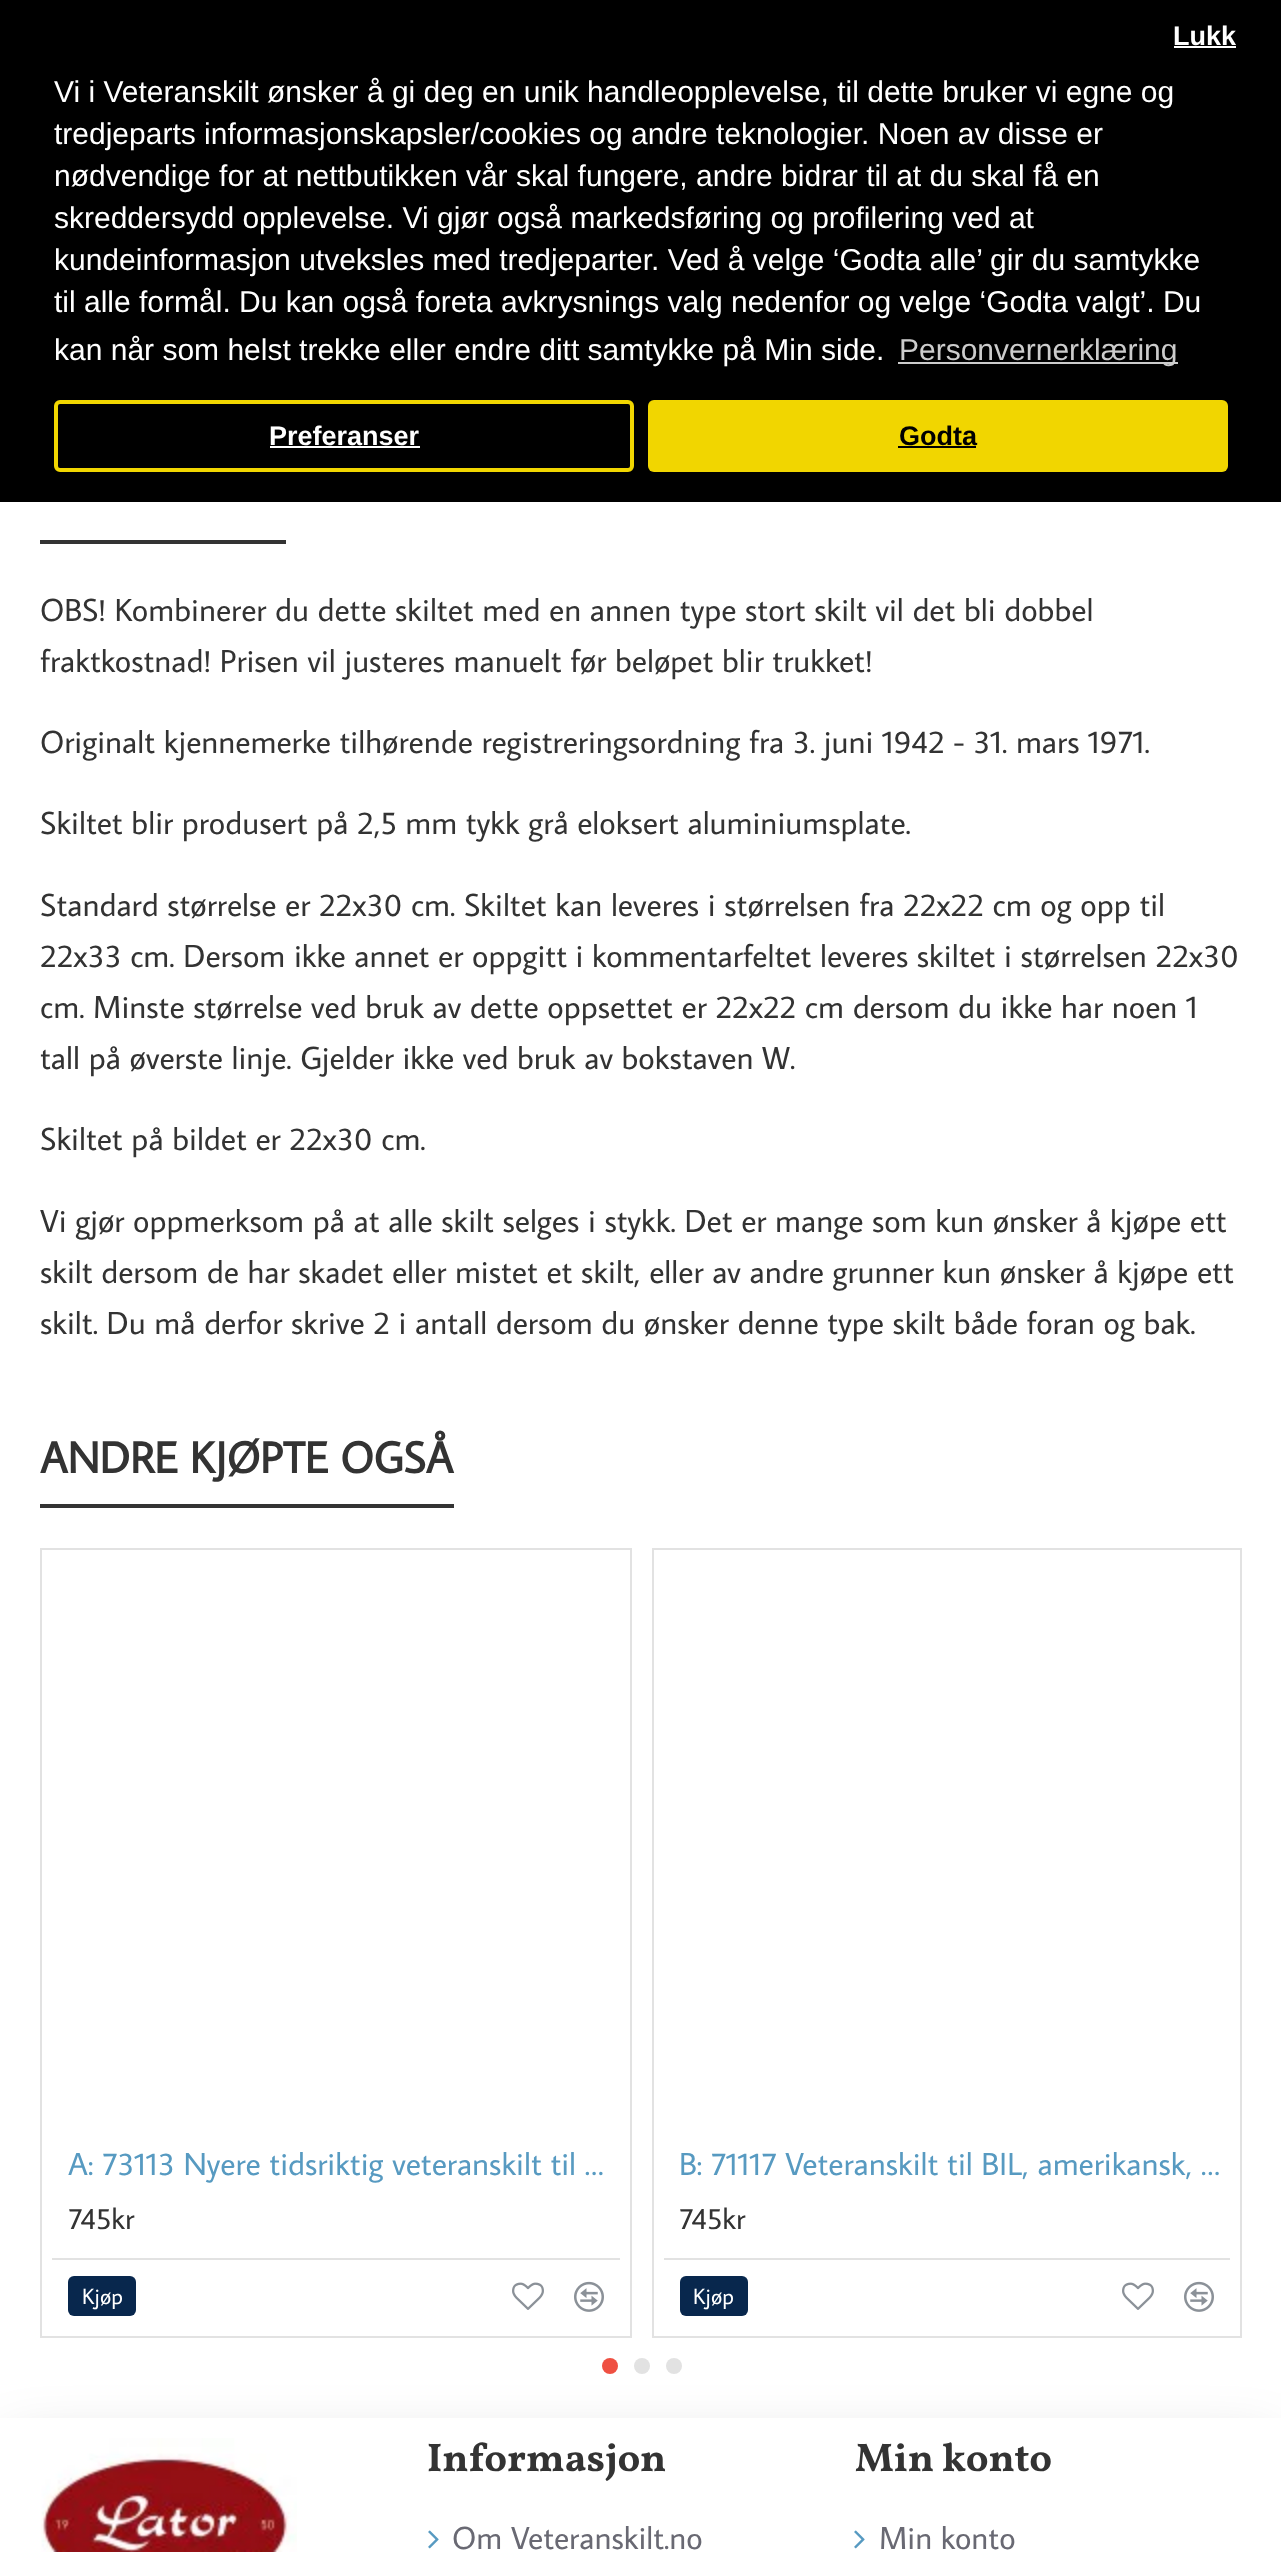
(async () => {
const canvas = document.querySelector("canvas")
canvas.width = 1281
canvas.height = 2552
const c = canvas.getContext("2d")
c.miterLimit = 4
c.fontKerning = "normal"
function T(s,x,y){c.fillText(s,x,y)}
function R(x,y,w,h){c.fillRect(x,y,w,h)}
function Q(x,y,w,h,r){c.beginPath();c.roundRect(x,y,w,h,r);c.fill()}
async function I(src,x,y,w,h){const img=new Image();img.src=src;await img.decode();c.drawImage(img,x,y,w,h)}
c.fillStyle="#fff"
R(0,0,1281,2552)
c.fillStyle="#000"
R(0,0,1281,502)
c.font="bold 27px Liberation Sans"
c.fillStyle="#fff"
T("Lukk",1173,45)
R(1174,46,62,2)
c.beginPath()
c.roundRect(56,402,576,68,4)
c.strokeStyle="#f1d600"
c.lineWidth=4
c.stroke()
T("Preferanser",269,445)
R(270,446,150,2)
c.fillStyle="#f1d600"
Q(648,400,580,72,6)
c.fillStyle="#000"
T("Godta",899,445)
R(898,446,78,2)
c.font="30px Liberation Sans"
c.fillStyle="#fff"
T("Vi i Veteranskilt ønsker å gi deg en unik handleopplevelse, til dette bruker vi egne og",54,102)
T("tredjeparts informasjonskapsler/cookies og andre teknologier. Noen av disse er",54,144)
T("nødvendige for at nettbutikken vår skal fungere, andre bidrar til at du skal få en",54,186)
T("skreddersydd opplevelse. Vi gjør også markedsføring og profilering ved at",54,228)
T("kundeinformasjon utveksles med tredjeparter. Ved å velge ‘Godta alle’ gir du samtykke",54,270)
T("til alle formål. Du kan også foreta avkrysnings valg nedenfor og velge ‘Godta valgt’. Du",54,312)
T("kan når som helst trekke eller endre ditt samtykke på Min side.",54,360)
c.fillStyle="#ccc"
R(898,362,280,2)
T("Personvernerklæring",899,360)
c.fillStyle="#333"
R(40,540,246,4)
c.font="32px Average Sans"
T("OBS! Kombinerer du dette skiltet med en annen type stort skilt vil det bli dobbel",40,621)
T("fraktkostnad! Prisen vil justeres manuelt før beløpet blir trukket!",40,672)
T("Originalt kjennemerke tilhørende registreringsordning fra 3. juni 1942 - 31. mars 1971.",40,753)
T("Skiltet blir produsert på 2,5 mm tykk grå eloksert aluminiumsplate.",40,834)
T("Standard størrelse er 22x30 cm. Skiltet kan leveres i størrelsen fra 22x22 cm og opp til",40,916)
T("22x33 cm. Dersom ikke annet er oppgitt i kommentarfeltet leveres skiltet i størrelsen 22x30",40,967)
T("cm. Minste størrelse ved bruk av dette oppsettet er 22x22 cm dersom du ikke har noen 1",40,1018)
T("tall på øverste linje. Gjelder ikke ved bruk av bokstaven W.",40,1069)
T("Skiltet på bildet er 22x30 cm.",40,1150)
T("Vi gjør oppmerksom på at alle skilt selges i stykk. Det er mange som kun ønsker å kjøpe ett",40,1232)
T("skilt dersom de har skadet eller mistet et skilt, eller av andre grunner kun ønsker å kjøpe ett",40,1283)
T("skilt. Du må derfor skrive 2 i antall dersom du ønsker denne type skilt både foran og bak.",40,1334)
R(40,1504,414,4)
c.font="bold 44px Average Sans"
T("ANDRE KJØPTE OGSÅ",40,1473)
c.strokeStyle="#e2e2e2"
c.lineWidth=2
c.strokeRect(41,1549,590,788)
c.font="32px Average Sans"
c.fillStyle="#579ac1"
T("A: 73113 Nyere tidsriktig veteranskilt til …",68,2175)
c.font="30px Average Sans"
c.fillStyle="#333"
T("745kr",68,2229)
c.fillStyle="#e2e2e2"
R(52,2258,568,2)
c.fillStyle="#08274d"
Q(68,2276,68,40,6)
c.font="22px Average Sans"
c.fillStyle="#fff"
T("Kjøp",82,2304)
await I("1.png",512,2282,32,28)
await I("2.png",574,2281,30,31)
c.strokeRect(653,1549,588,788)
c.font="32px Average Sans"
c.fillStyle="#579ac1"
T("B: 71117 Veteranskilt til BIL, amerikansk, …",679,2175)
c.font="30px Average Sans"
c.fillStyle="#333"
T("745kr",679,2229)
c.fillStyle="#e2e2e2"
R(664,2258,566,2)
c.fillStyle="#08274d"
Q(680,2276,68,40,6)
c.font="22px Average Sans"
c.fillStyle="#fff"
T("Kjøp",693,2304)
await I("1.png",1122,2282,32,28)
await I("2.png",1184,2281,30,31)
c.fillStyle="#00000033"
c.filter="blur(30px)"
c.beginPath()
c.rect(10,2448,1262,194)
c.fill()
c.filter="none"
c.fillStyle="#ef5042"
c.beginPath()
c.arc(610,2366,8,0,7)
c.fill()
c.fillStyle="#e2e2e2"
c.beginPath()
c.arc(642,2366,8,0,7)
c.fill()
c.beginPath()
c.arc(674,2366,8,0,7)
c.fill()
c.fillStyle="#fff"
R(0,2418,1281,134)
await I("3.png",41,2438,256,114)
c.font="bold 40px Vollkorn"
c.fillStyle="#333"
T("Informasjon",427,2471)
await I("4.png",428,2530,11,19)
c.font="32px Average Sans"
c.fillStyle="#696973"
T("Om Veteranskilt.no",452,2549)
c.font="bold 40px Vollkorn"
c.fillStyle="#333"
T("Min konto",855,2471)
await I("4.png",854,2530,11,19)
c.font="32px Average Sans"
c.fillStyle="#696973"
T("Min konto",879,2549)
})()
